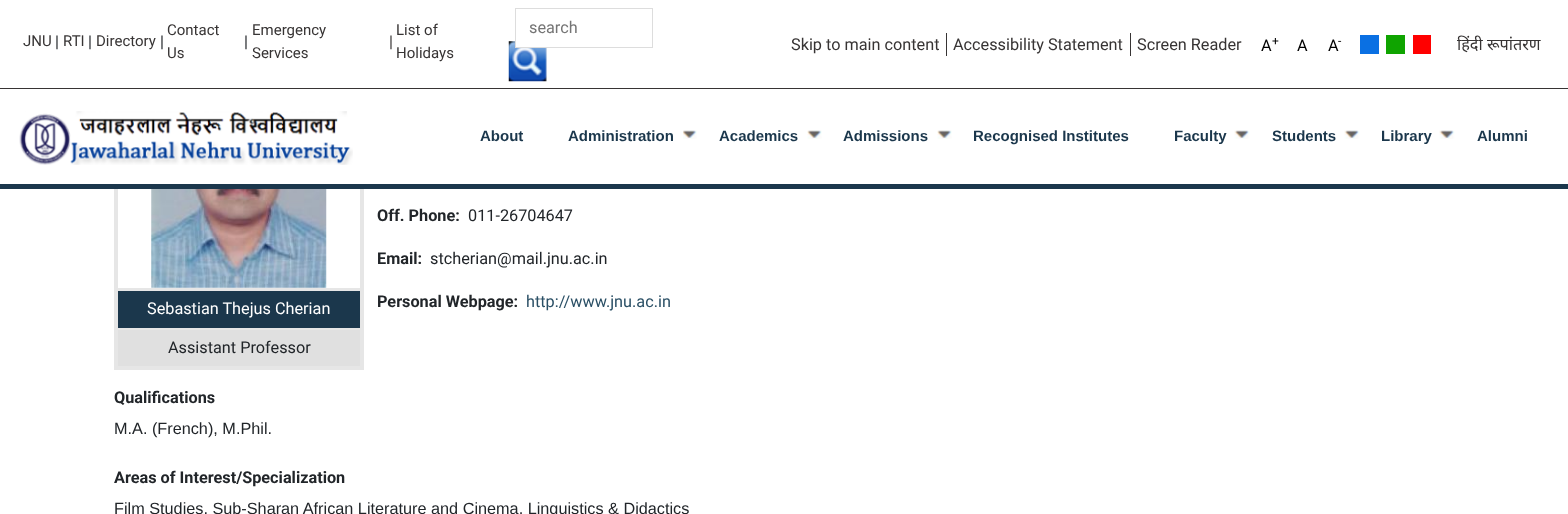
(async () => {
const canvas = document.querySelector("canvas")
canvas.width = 1568
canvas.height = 514
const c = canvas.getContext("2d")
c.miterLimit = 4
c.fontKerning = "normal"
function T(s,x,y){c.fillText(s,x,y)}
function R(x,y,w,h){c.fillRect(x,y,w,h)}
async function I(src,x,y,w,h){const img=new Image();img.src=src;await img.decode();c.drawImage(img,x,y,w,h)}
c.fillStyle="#fff"
R(0,0,1568,514)
c.strokeStyle="#e6e6e6"
c.lineWidth=4
c.strokeRect(116,76,246,292)
R(114,74,250,110)
c.fillStyle="#1b374c"
R(0,184,1568,5)
c.fillStyle="#373434"
R(0,88,1568,1)
c.font="15px Roboto"
T("JNU",23,46)
c.font="16.25px Roboto"
c.fillStyle="#212529"
T("|",55,47)
c.font="15px Roboto"
c.fillStyle="#373434"
T("RTI",63,46)
c.font="16.25px Roboto"
c.fillStyle="#212529"
T("|",88,47)
c.font="15px Roboto"
c.fillStyle="#373434"
T("Directory",96,46)
c.font="16.25px Roboto"
c.fillStyle="#212529"
T("|",160,47)
c.font="15px Roboto"
c.fillStyle="#373434"
T("Contact",167,35)
T("Us",167,58)
c.font="16.25px Roboto"
c.fillStyle="#212529"
T("|",244,47)
c.font="15px Roboto"
c.fillStyle="#373434"
T("Emergency",252,35)
T("Services",252,58)
c.font="16.25px Roboto"
T("|",389,47)
c.font="15px Roboto"
T("List of",396,35)
T("Holidays",396,58)
await I("1.png",508,41,39,41)
c.fillStyle="#fff"
R(516,41,31,6)
c.strokeStyle="#ddd"
c.lineWidth=1
c.strokeRect(515.5,8.5,137,39)
c.font="16.25px Roboto"
c.fillStyle="#757575"
T("search",529,33)
c.fillStyle="#373434"
R(946,33,1,23)
T("Skip to main content",791,50)
R(1130,33,1,23)
T("Accessibility Statement",953,50)
T("Screen Reader",1137,50)
c.fillStyle="#000"
T("A",1261,51)
c.font="12px Roboto"
T("+",1272,45)
c.font="16.25px Roboto"
T("A",1297,51)
T("A",1328,51)
c.font="12px Roboto"
T("-",1338,45)
c.fillStyle="#0a70e3"
R(1360,35,19,19)
c.fillStyle="#0fa400"
R(1386,35,19,19)
c.fillStyle="#f00"
R(1413,35,18,19)
c.font="16.25px Noto Sans"
c.fillStyle="#373434"
T("हिंदी रूपांतरण",1457,50)
await I("2.png",19,111,334,54)
c.font="bold 15px Liberation Sans"
c.fillStyle="#1b374c"
T("About",480,141)
T("Administration",568,141)
await I("3.png",683,130,14,9)
T("Academics",719,141)
await I("4.png",807,130,15,9)
T("Admissions",843,141)
await I("4.png",937,130,15,9)
T("Recognised Institutes",973,141)
T("Faculty",1174,141)
await I("5.png",1234,130,16,9)
T("Students",1272,141)
await I("6.png",1344,130,16,9)
T("Library",1381,141)
await I("6.png",1439,130,16,9)
T("Alumni",1477,141)
c.font="bold 16.25px Roboto"
c.fillStyle="#212529"
T("Off. Phone:",377,221)
c.font="16.25px Roboto"
T("011-26704647",468,221)
c.font="bold 16.25px Roboto"
T("Email:",377,264)
c.font="16.25px Roboto"
T("stcherian@mail.jnu.ac.in",430,264)
c.font="bold 16.25px Roboto"
T("Personal Webpage:",377,307)
c.font="16.25px Roboto"
c.fillStyle="#2a4f65"
T("http://www.jnu.ac.in",526,307)
await I("7.png",151,189,176,99)
c.fillStyle="#1b374c"
R(118,291,242,37)
c.fillStyle="#e6e6e6"
R(118,288,242,3)
R(118,328,242,2)
c.fillStyle="#fff"
T("Sebastian Thejus Cherian",147,314)
c.fillStyle="#e0e0e0"
R(118,330,242,36)
c.fillStyle="#212529"
T("Assistant Professor",168,353)
c.font="bold 16.25px Roboto"
T("Qualifications",114,403)
c.font="16.25px Liberation Sans"
T("M.A. (French), M.Phil.",114,434)
c.font="bold 16.25px Roboto"
T("Areas of Interest/Specialization",114,483)
c.font="16.25px Liberation Sans"
T("Film Studies, Sub-Sharan African Literature and Cinema, Linguistics & Didactics",114,514)
})()
